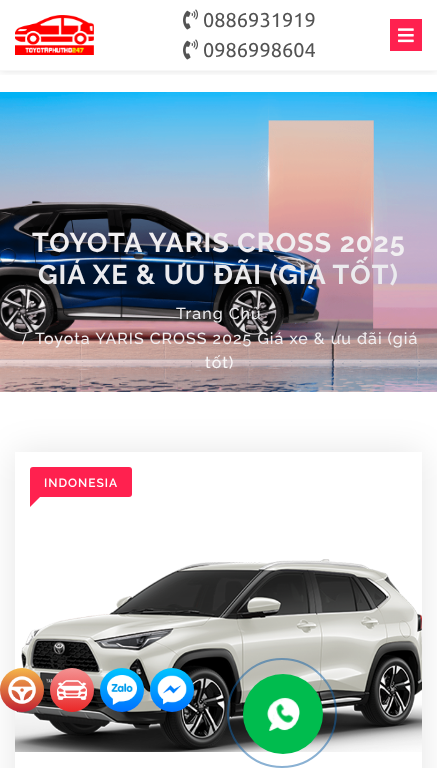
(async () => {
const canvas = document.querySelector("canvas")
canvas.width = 437
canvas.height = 768
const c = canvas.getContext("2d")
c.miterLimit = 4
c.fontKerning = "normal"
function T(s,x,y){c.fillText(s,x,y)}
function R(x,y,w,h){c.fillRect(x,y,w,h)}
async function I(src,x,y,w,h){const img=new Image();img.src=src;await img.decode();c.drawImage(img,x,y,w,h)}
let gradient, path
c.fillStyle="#fff"
R(0,0,437,768)
c.save()
c.beginPath()
c.rect(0,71,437,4)
c.clip()
c.fillStyle="#0000001f"
c.filter="blur(4px)"
c.beginPath()
c.rect(0,0,437,71)
c.fill()
c.filter="none"
c.restore()
c.fillStyle="#f8f8f8"
R(0,70,437,1)
await I("1.png",15,15,79,40)
await I("2.png",183,9,15,21)
c.font="20px Ubuntu"
c.fillStyle="#535353"
T("0886931919",203,27)
await I("2.png",183,39,15,21)
T("0986998604",203,57)
c.fillStyle="#ff214f"
R(390,19,32,32)
await I("3.png",398,28,16,15)
await I("4.png",0,92,437,300)
c.letterSpacing="1px"
c.font="bold 27px Raleway"
c.fillStyle="#f1eff1"
T("TOYOTA YARIS CROSS 2025",32,252)
c.fillStyle="#ebebee"
T("GIÁ XE & ƯU ĐÃI (GIÁ TỐT)",38,284)
c.font="500 16px Raleway"
T("Trang Chủ",176,319)
c.font="bold 16px Liberation Serif"
c.fillStyle="#f1eff1"
T("/",22,344)
c.font="500 16px Raleway"
T("Toyota YARIS CROSS 2025 Giá xe & ưu đãi (giá",35,344)
c.fillStyle="#f9f7f7"
T("tốt)",205,368)
c.save()
path = new Path2D("M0 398h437v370h-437zm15 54h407v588h-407z")
c.clip(path,"evenodd")
c.fillStyle="#0000001a"
c.filter="blur(17.5px)"
c.beginPath()
c.rect(15,452,407,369)
c.fill()
c.filter="none"
c.restore()
c.fillStyle="#ff214f"
c.beginPath()
c.roundRect(30,467,102,30,[3,3,3,0])
c.fill()
c.font="600 12px Raleway"
c.fillStyle="#fff"
T("INDONESIA",44,487)
c.fillStyle="#ff214f"
path = new Path2D("M30 507v-10h10z")
c.fill(path)
await I("5.png",15,559,407,193)
gradient = c.createLinearGradient(22,668,22,712)
gradient.addColorStop(0,"#f5b74a")
gradient.addColorStop(1,"#c12032")
c.fillStyle = gradient
c.beginPath()
c.arc(22,690,22,0,7)
c.fill()
await I("6.png",8,676,28,28)
gradient = c.createLinearGradient(72,668,72,712)
gradient.addColorStop(0,"#f49393")
gradient.addColorStop(1,"#ea2727")
c.fillStyle = gradient
c.beginPath()
c.arc(72,690,22,0,7)
c.fill()
await I("7.png",57,680,30,20)
gradient = c.createLinearGradient(122,668,122,712)
gradient.addColorStop(0,"#00c5ff")
gradient.addColorStop(1,"#0070ff")
c.fillStyle = gradient
c.beginPath()
c.arc(122,690,22,0,7)
c.fill()
await I("8.png",107,675,30,30)
gradient = c.createLinearGradient(172,668,172,712)
gradient.addColorStop(0,"#00c5ff")
gradient.addColorStop(1,"#0070ff")
c.fillStyle = gradient
c.beginPath()
c.arc(172,690,22,0,7)
c.fill()
await I("9.png",157,675,30,30)
c.beginPath()
c.arc(282,713,54,0,7)
c.strokeStyle="#1564a780"
c.lineWidth=2
c.stroke()
c.fillStyle="#00bc4e"
c.beginPath()
c.arc(283,714,40,0,7)
c.fill()
await I("10.png",267,697,33,34)
})()
